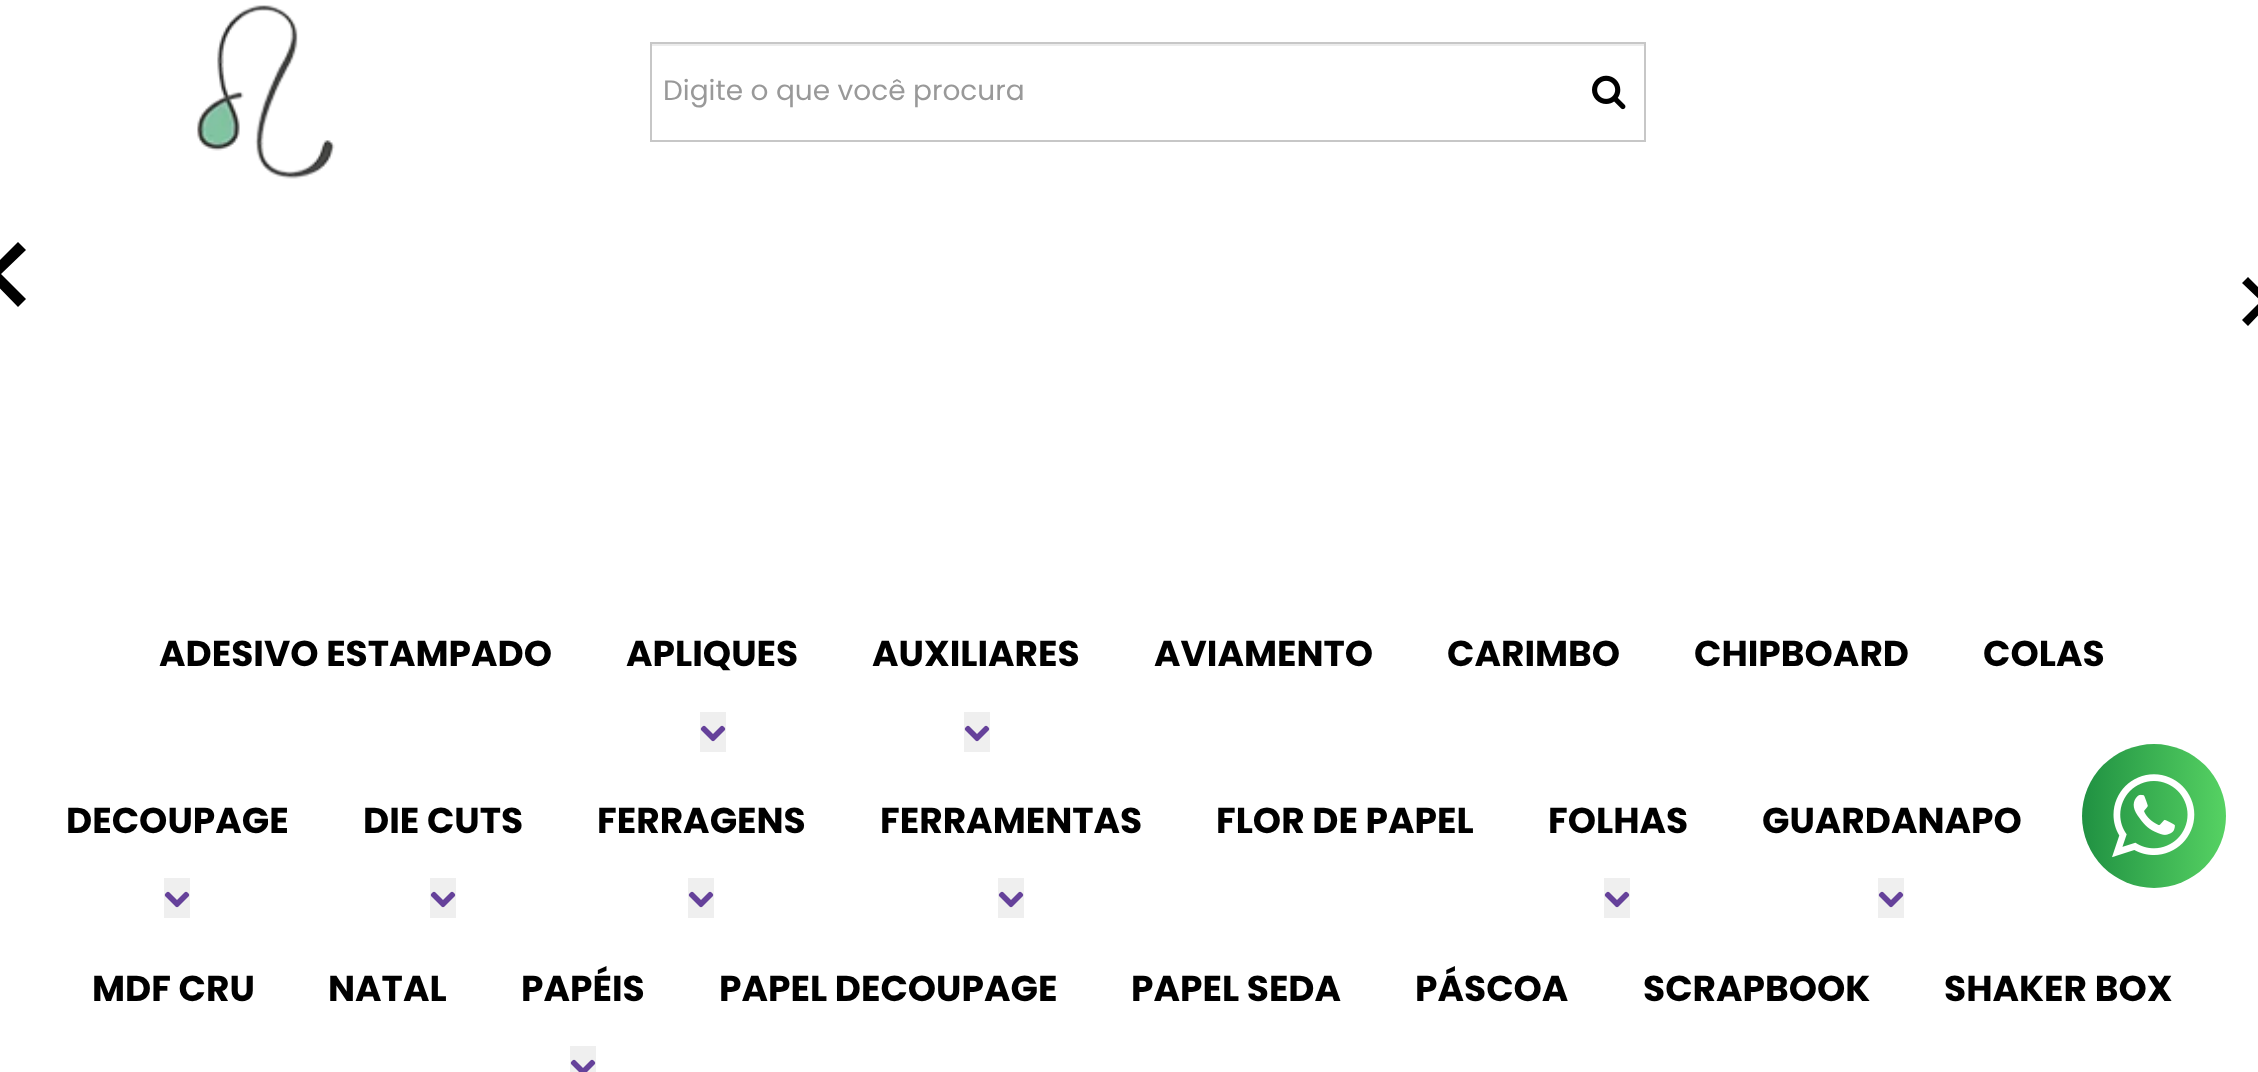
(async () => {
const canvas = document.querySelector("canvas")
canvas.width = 2258
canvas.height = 1072
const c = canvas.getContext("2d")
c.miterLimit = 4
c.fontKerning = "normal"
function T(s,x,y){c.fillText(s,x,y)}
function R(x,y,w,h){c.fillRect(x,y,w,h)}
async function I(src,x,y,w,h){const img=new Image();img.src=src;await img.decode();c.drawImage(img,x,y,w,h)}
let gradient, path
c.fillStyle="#fff"
R(0,0,2258,1072)
await I("1.png",197,5,138,174)
c.fillStyle="#ececec"
R(652,44,992,2)
c.strokeStyle="#c7c7c7"
c.lineWidth=2
c.strokeRect(651,43,994,98)
c.font="28px Poppins"
c.fillStyle="#999"
T("Digite o que você procura",663,100)
await I("2.png",1592,75,34,35)
c.fillStyle="#000"
path = new Path2D("M26 250l-8-8l-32 32l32 33l8-8l-25-25z")
c.fill(path)
path = new Path2D("M2242 320l6 6l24-25l-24-24l-6 6l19 18z")
c.fill(path)
c.font="bold 36px Poppins"
T("ADESIVO ESTAMPADO",159,666)
T("APLIQUES",626,666)
c.fillStyle="#efefef"
R(700,712,26,40)
await I("3.png",700,725,26,17)
c.fillStyle="#000"
T("AUXILIARES",872,666)
c.fillStyle="#efefef"
R(964,712,26,40)
await I("3.png",964,725,26,17)
c.fillStyle="#000"
T("AVIAMENTO",1154,666)
T("CARIMBO",1447,666)
T("CHIPBOARD",1694,666)
T("COLAS",1983,666)
T("DECOUPAGE",66,833)
c.fillStyle="#efefef"
R(164,878,26,40)
await I("3.png",164,891,26,17)
c.fillStyle="#000"
T("DIE CUTS",363,833)
c.fillStyle="#efefef"
R(430,878,26,40)
await I("3.png",430,891,26,17)
c.fillStyle="#000"
T("FERRAGENS",597,833)
c.fillStyle="#efefef"
R(688,878,26,40)
await I("3.png",688,891,26,17)
c.fillStyle="#000"
T("FERRAMENTAS",880,833)
c.fillStyle="#efefef"
R(998,878,26,40)
await I("3.png",998,891,26,17)
c.fillStyle="#000"
T("FLOR DE PAPEL",1216,833)
T("FOLHAS",1548,833)
c.fillStyle="#efefef"
R(1604,878,26,40)
await I("3.png",1604,891,26,17)
c.fillStyle="#000"
T("GUARDANAPO",1762,833)
c.fillStyle="#efefef"
R(1878,878,26,40)
await I("3.png",1878,891,26,17)
c.fillStyle="#000"
T("MDF CRU",92,1001)
T("NATAL",328,1001)
T("PAPÉIS",521,1001)
c.fillStyle="#efefef"
R(570,1046,26,26)
await I("4.png",570,1059,26,13)
c.fillStyle="#000"
T("PAPEL DECOUPAGE",719,1001)
T("PAPEL SEDA",1131,1001)
T("PÁSCOA",1415,1001)
T("SCRAPBOOK",1643,1001)
T("SHAKER BOX",1944,1001)
gradient = c.createLinearGradient(2082,816,2226,816)
gradient.addColorStop(0,"#209142")
gradient.addColorStop(1,"#56d263")
c.fillStyle = gradient
c.beginPath()
c.arc(2154,816,72,0,7)
c.fill()
await I("5.png",2112,774,83,84)
})()
